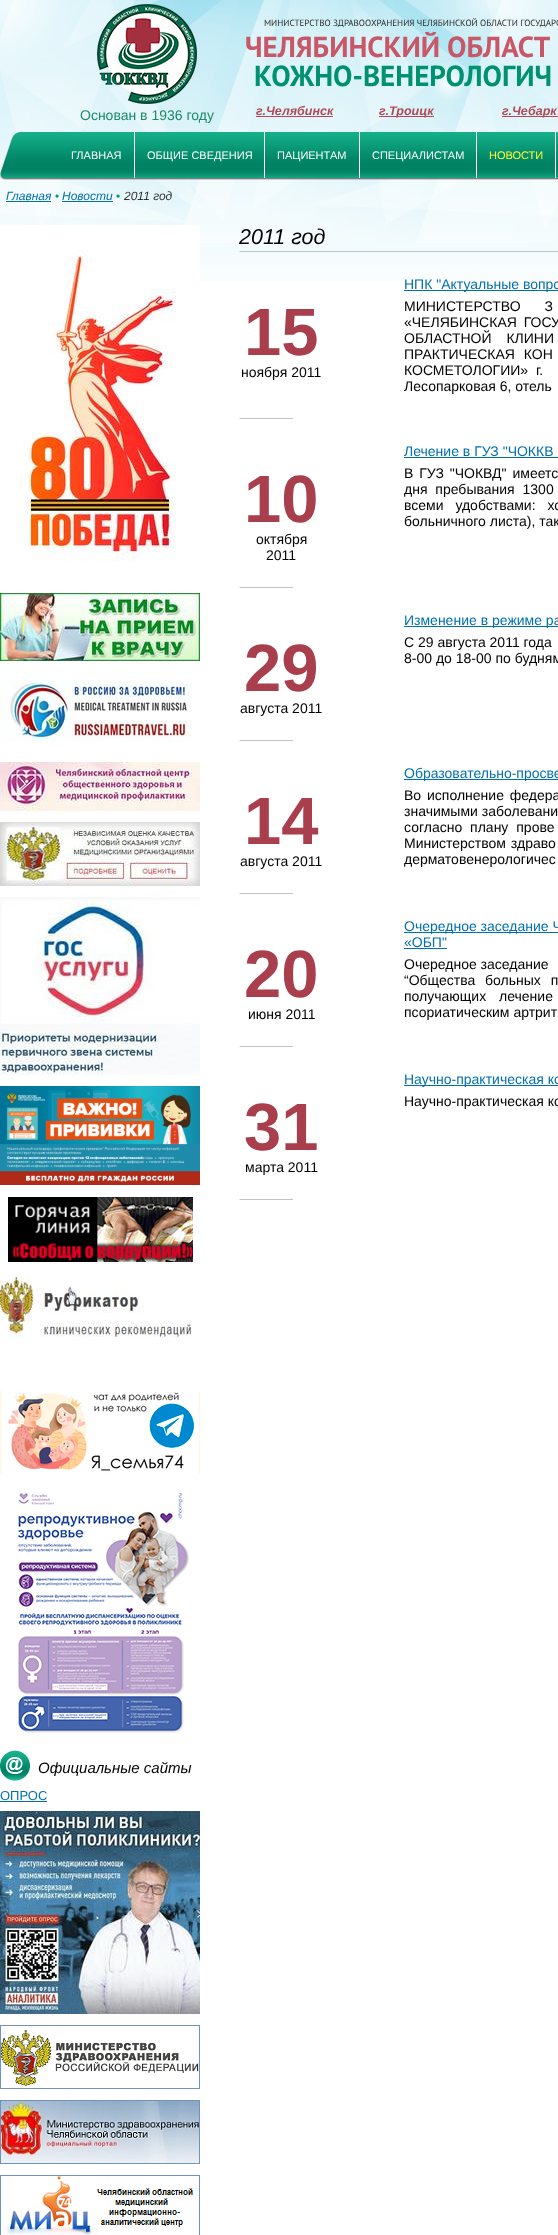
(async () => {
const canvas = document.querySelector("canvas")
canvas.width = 558
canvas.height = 2235
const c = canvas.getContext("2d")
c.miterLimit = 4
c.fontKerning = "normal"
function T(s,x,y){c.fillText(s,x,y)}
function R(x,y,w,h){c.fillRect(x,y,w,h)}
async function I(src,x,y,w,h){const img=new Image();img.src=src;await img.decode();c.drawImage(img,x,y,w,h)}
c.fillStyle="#fff"
R(0,0,558,2235)
await I("1.png",0,0,558,281)
await I("2.png",0,0,558,243)
c.font="9px PT Sans"
c.fillStyle="#2a2a2a"
T("МИНИСТЕРСТВО ЗДРАВООХРАНЕНИЯ ЧЕЛЯБИНСКОЙ ОБЛАСТИ ГОСУДАРС",264,26)
c.font="bold 29px PT Sans"
c.fillStyle="#c85767"
T("ЧЕЛЯБИНСКИЙ ОБЛАСТ",245,57)
c.fillStyle="#009270"
T("КОЖНО-ВЕНЕРОЛОГИЧ",254,86)
await I("3.png",97,4,100,100)
c.font="14px Liberation Sans"
c.fillStyle="#1c8a68"
T("Основан в 1936 году",80,120)
c.font="italic bold 12.5px Liberation Sans"
c.fillStyle="#b04a58"
T("г.Челябинск",256,115)
R(256,116,77,1)
R(379,116,55,1)
T("г.Троицк",379,115)
R(502,116,56,1)
T("г.Чебарк",502,115)
await I("4.png",0,132,21,48)
await I("5.png",21,132,537,48)
c.fillStyle="#fff"
R(134,132,1,46)
c.font="11px Liberation Sans"
T("ГЛАВНАЯ",71,159)
R(264,132,1,46)
T("ОБЩИЕ СВЕДЕНИЯ",147,159)
R(359,132,1,46)
T("ПАЦИЕНТАМ",277,159)
R(476,132,1,46)
T("СПЕЦИАЛИСТАМ",372,159)
R(555,132,1,46)
c.fillStyle="#fdff36"
T("НОВОСТИ",489,159)
c.font="italic 12px Liberation Sans"
c.fillStyle="#0071ac"
T("Главная",6,200)
R(6,201,45,1)
c.font="12px Liberation Sans"
c.fillStyle="#07987a"
T("•",55,200)
c.font="italic 12px Liberation Sans"
c.fillStyle="#0071ac"
T("Новости",62,200)
R(62,201,51,1)
c.font="12px Liberation Sans"
c.fillStyle="#07987a"
T("•",116,200)
c.font="italic 12px Liberation Sans"
c.fillStyle="#333"
T("2011 год",124,200)
await I("6.png",239,251,319,1)
c.font="italic 21.5px Liberation Sans"
c.fillStyle="#000"
T("2011 год",239,244)
await I("7.png",239,418,54,1)
c.font="bold 67px Liberation Sans"
c.fillStyle="#a93f4d"
T("15",244,355)
c.font="14px Liberation Sans"
c.fillStyle="#000"
T("ноября 2011",241,377)
c.fillStyle="#0071ac"
R(404,290,154,1)
T("НПК \"Актуальные вопро",404,289)
c.wordSpacing="20px"
c.fillStyle="#000"
T("МИНИСТЕРСТВО З",404,311)
c.wordSpacing="3px"
T("«ЧЕЛЯБИНСКАЯ ГОСУ",404,327)
c.wordSpacing="11px"
T("ОБЛАСТНОЙ КЛИНИ",404,343)
c.wordSpacing="5px"
T("ПРАКТИЧЕСКАЯ КОН",404,359)
c.wordSpacing="4px"
T("КОСМЕТОЛОГИИ» г.",404,375)
c.wordSpacing="0px"
T("Лесопарковая 6, отель",404,391)
await I("7.png",239,587,54,1)
c.font="bold 67px Liberation Sans"
c.fillStyle="#a93f4d"
T("10",244,522)
c.font="14px Liberation Sans"
c.fillStyle="#000"
T("октября",256,544)
T("2011",266,560)
c.fillStyle="#0071ac"
T("Лечение в ГУЗ \"ЧОККВ",404,456)
R(404,457,154,1)
c.wordSpacing="2px"
c.fillStyle="#000"
T("В ГУЗ \"ЧОКВД\" имеетс",404,478)
c.wordSpacing="4px"
T("дня пребывания 1300",404,494)
c.wordSpacing="8px"
T("всеми удобствами: хо",404,510)
c.wordSpacing="0px"
T("больничного листа), так",404,526)
await I("7.png",239,740,54,1)
c.font="bold 67px Liberation Sans"
c.fillStyle="#a93f4d"
T("29",244,691)
c.font="14px Liberation Sans"
c.fillStyle="#000"
T("августа 2011",240,713)
c.fillStyle="#0071ac"
R(404,626,154,1)
T("Изменение в режиме ра",404,625)
c.fillStyle="#000"
T("С 29 августа 2011 года",404,647)
T("8-00 до 18-00 по будням",404,663)
await I("7.png",239,893,54,1)
c.font="bold 67px Liberation Sans"
c.fillStyle="#a93f4d"
T("14",244,844)
c.font="14px Liberation Sans"
c.fillStyle="#000"
T("августа 2011",240,866)
c.fillStyle="#0071ac"
R(404,779,154,1)
T("Образовательно-просве",404,778)
c.wordSpacing="2px"
c.fillStyle="#000"
T("Во исполнение федера",404,800)
c.wordSpacing="0px"
T("значимыми заболевани",404,816)
c.wordSpacing="4px"
T("согласно плану прове",404,832)
c.wordSpacing="1px"
T("Министерством здраво",404,848)
c.wordSpacing="0px"
T("дерматовенерологичес",404,864)
await I("7.png",239,1046,54,1)
c.font="bold 67px Liberation Sans"
c.fillStyle="#a93f4d"
T("20",244,997)
c.font="14px Liberation Sans"
c.fillStyle="#000"
T("июня 2011",248,1019)
c.fillStyle="#0071ac"
R(404,932,154,1)
T("Очередное заседание Ч",404,931)
T("«ОБП\"",404,947)
R(404,948,43,1)
c.fillStyle="#000"
T("Очередное заседание",404,969)
c.wordSpacing="6px"
T("“Общества больных п",404,985)
c.wordSpacing="9px"
T("получающих лечение",404,1001)
c.wordSpacing="0px"
T("псориатическим артрит",404,1017)
await I("7.png",239,1199,54,1)
c.fillStyle="#0071ac"
R(404,1085,154,1)
T("Научно-практическая ко",404,1084)
c.fillStyle="#000"
T("Научно-практическая ко",404,1106)
c.font="bold 67px Liberation Sans"
c.fillStyle="#a93f4d"
T("31",244,1150)
c.font="14px Liberation Sans"
c.fillStyle="#000"
T("марта 2011",245,1172)
await I("8.png",0,225,200,337)
await I("9.png",0,593,200,68)
await I("10.png",0,672,192,72)
await I("11.png",0,762,200,49)
await I("12.png",0,822,200,64)
await I("13.png",0,897,200,178)
await I("14.png",0,1086,200,99)
await I("15.png",8,1197,185,65)
await I("16.png",0,1273,192,64)
await I("17.png",0,1391,200,83)
await I("18.png",18,1493,172,240)
await I("19.png",0,1750,30,31)
c.font="italic 15px Liberation Sans"
T("Официальные сайты",38,1773)
c.font="13px Liberation Sans"
c.fillStyle="#0071ac"
T("ОПРОС",0,1800)
R(0,1801,47,1)
await I("20.png",0,1811,200,203)
await I("21.png",0,2025,200,64)
await I("22.png",0,2100,200,64)
await I("23.png",0,2175,200,60)
})()
